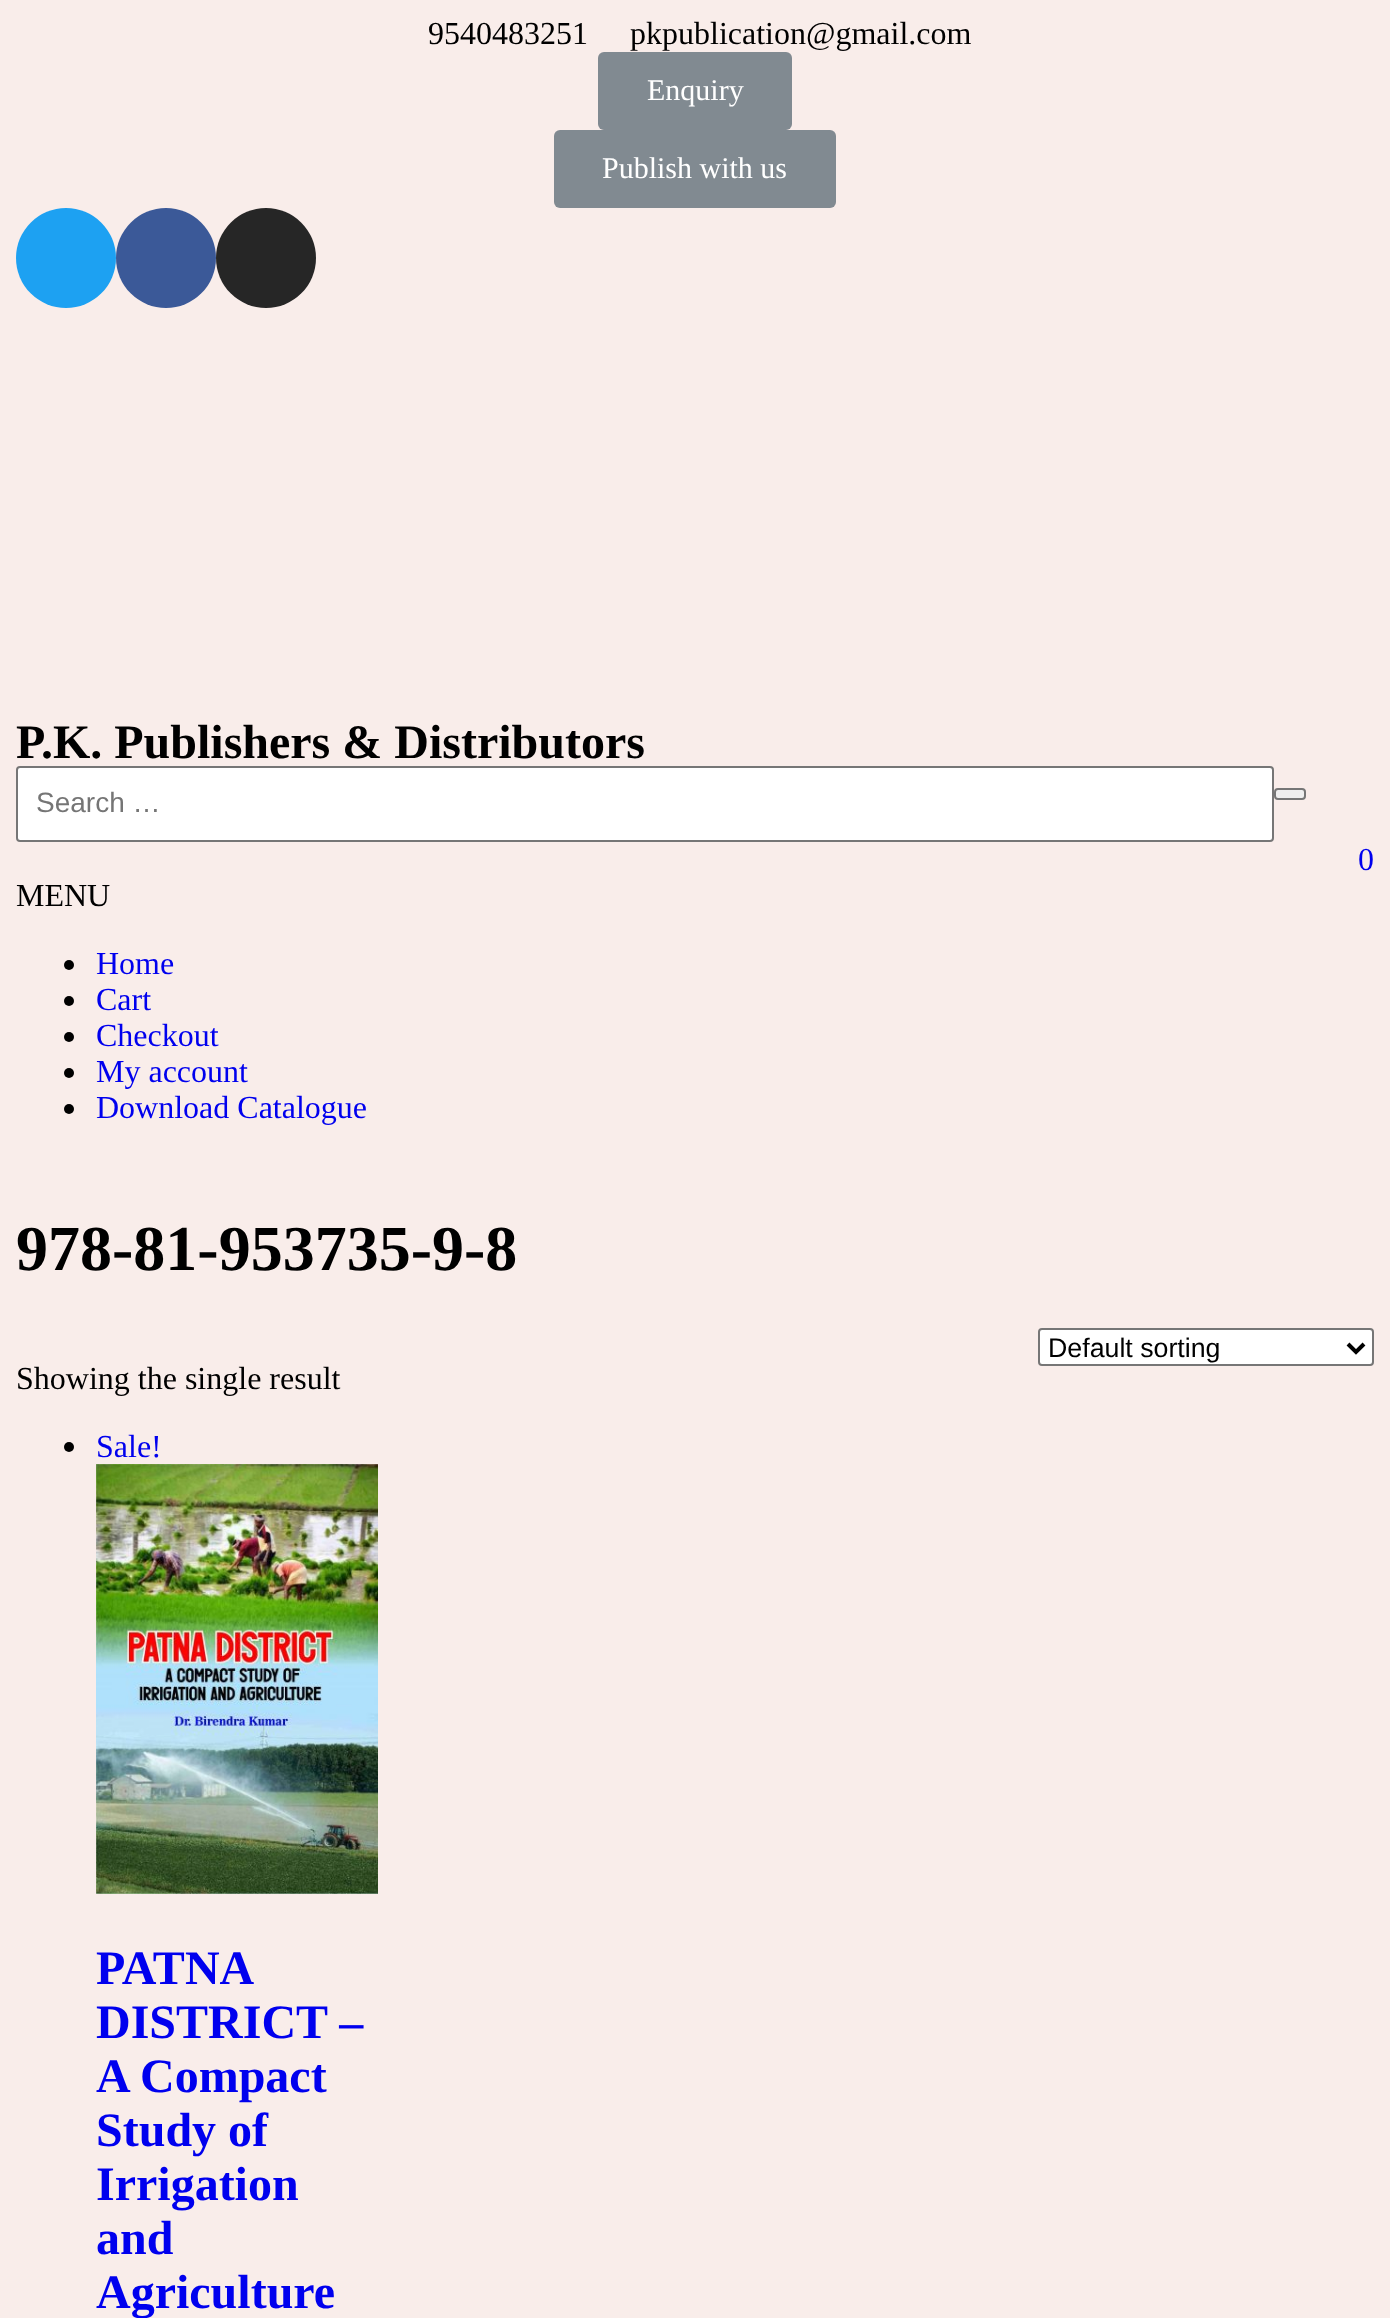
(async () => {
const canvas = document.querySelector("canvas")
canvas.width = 1390
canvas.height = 2318
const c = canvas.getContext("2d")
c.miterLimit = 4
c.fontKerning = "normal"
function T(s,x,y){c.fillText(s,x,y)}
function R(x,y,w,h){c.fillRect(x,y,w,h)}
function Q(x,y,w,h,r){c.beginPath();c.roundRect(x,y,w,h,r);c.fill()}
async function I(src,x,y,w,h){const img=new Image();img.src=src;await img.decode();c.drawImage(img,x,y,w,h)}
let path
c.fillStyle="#f9edea"
R(0,0,1390,2318)
c.font="32px Liberation Serif"
c.fillStyle="#000"
T("9540483251",428,44)
T("pkpublication@gmail.com",630,44)
c.fillStyle="#818a91"
Q(598,52,194,78,6)
c.font="30px Liberation Serif"
c.fillStyle="#fff"
T("Enquiry",647,100)
c.fillStyle="#818a91"
Q(554,130,282,78,6)
c.fillStyle="#fff"
T("Publish with us",602,178)
c.fillStyle="#1da1f2"
c.beginPath()
c.arc(66,258,50,0,7)
c.fill()
c.fillStyle="#3b5998"
c.beginPath()
c.arc(166,258,50,0,7)
c.fill()
c.fillStyle="#262626"
c.beginPath()
c.arc(266,258,50,0,7)
c.fill()
c.font="bold 48px Liberation Serif"
c.fillStyle="#000"
T("P.K. Publishers & Distributors",16,758)
c.fillStyle="#fff"
c.beginPath()
c.roundRect(17,767,1256,74,3)
c.fill()
c.strokeStyle="#767676"
c.lineWidth=2
c.stroke()
c.font="28px Liberation Sans"
c.fillStyle="#757575"
T("Search …",36,812)
c.fillStyle="#efefef"
c.beginPath()
c.roundRect(1275,789,30,10,3)
c.fill()
c.stroke()
c.font="32px Liberation Serif"
c.fillStyle="#00e"
T("0",1358,870)
c.fillStyle="#000"
T("MENU",16,906)
c.beginPath()
c.arc(69,965,5,0,7)
c.fill()
c.fillStyle="#00e"
T("Home",96,974)
c.fillStyle="#000"
c.beginPath()
c.arc(69,1001,5,0,7)
c.fill()
c.fillStyle="#00e"
T("Cart",96,1010)
c.fillStyle="#000"
c.beginPath()
c.arc(69,1037,5,0,7)
c.fill()
c.fillStyle="#00e"
T("Checkout",96,1046)
c.fillStyle="#000"
c.beginPath()
c.arc(69,1073,5,0,7)
c.fill()
c.fillStyle="#00e"
T("My account",96,1082)
c.fillStyle="#000"
c.beginPath()
c.arc(69,1109,5,0,7)
c.fill()
c.fillStyle="#00e"
T("Download Catalogue",96,1118)
c.font="bold 64px Liberation Serif"
c.fillStyle="#000"
T("978-81-953735-9-8",16,1270)
c.fillStyle="#fff"
c.beginPath()
c.roundRect(1039,1329,334,36,3)
c.fill()
c.stroke()
path = new Path2D("M1348 1344l8 8l8-8")
c.strokeStyle="#000"
c.lineWidth=4
c.stroke(path)
c.font="26.75px Liberation Sans"
c.fillStyle="#000"
T("Default sorting",1048,1357)
c.font="32px Liberation Serif"
T("Showing the single result",16,1389)
c.beginPath()
c.arc(69,1447,5,0,7)
c.fill()
c.fillStyle="#00e"
T("Sale!",96,1457)
await I("1.png",96,1464,282,430)
c.font="bold 48px Liberation Serif"
T("PATNA",96,1984)
T("DISTRICT –",96,2038)
T("A Compact",96,2092)
T("Study of",96,2146)
T("Irrigation",96,2200)
T("and",96,2254)
T("Agriculture",96,2308)
})()
